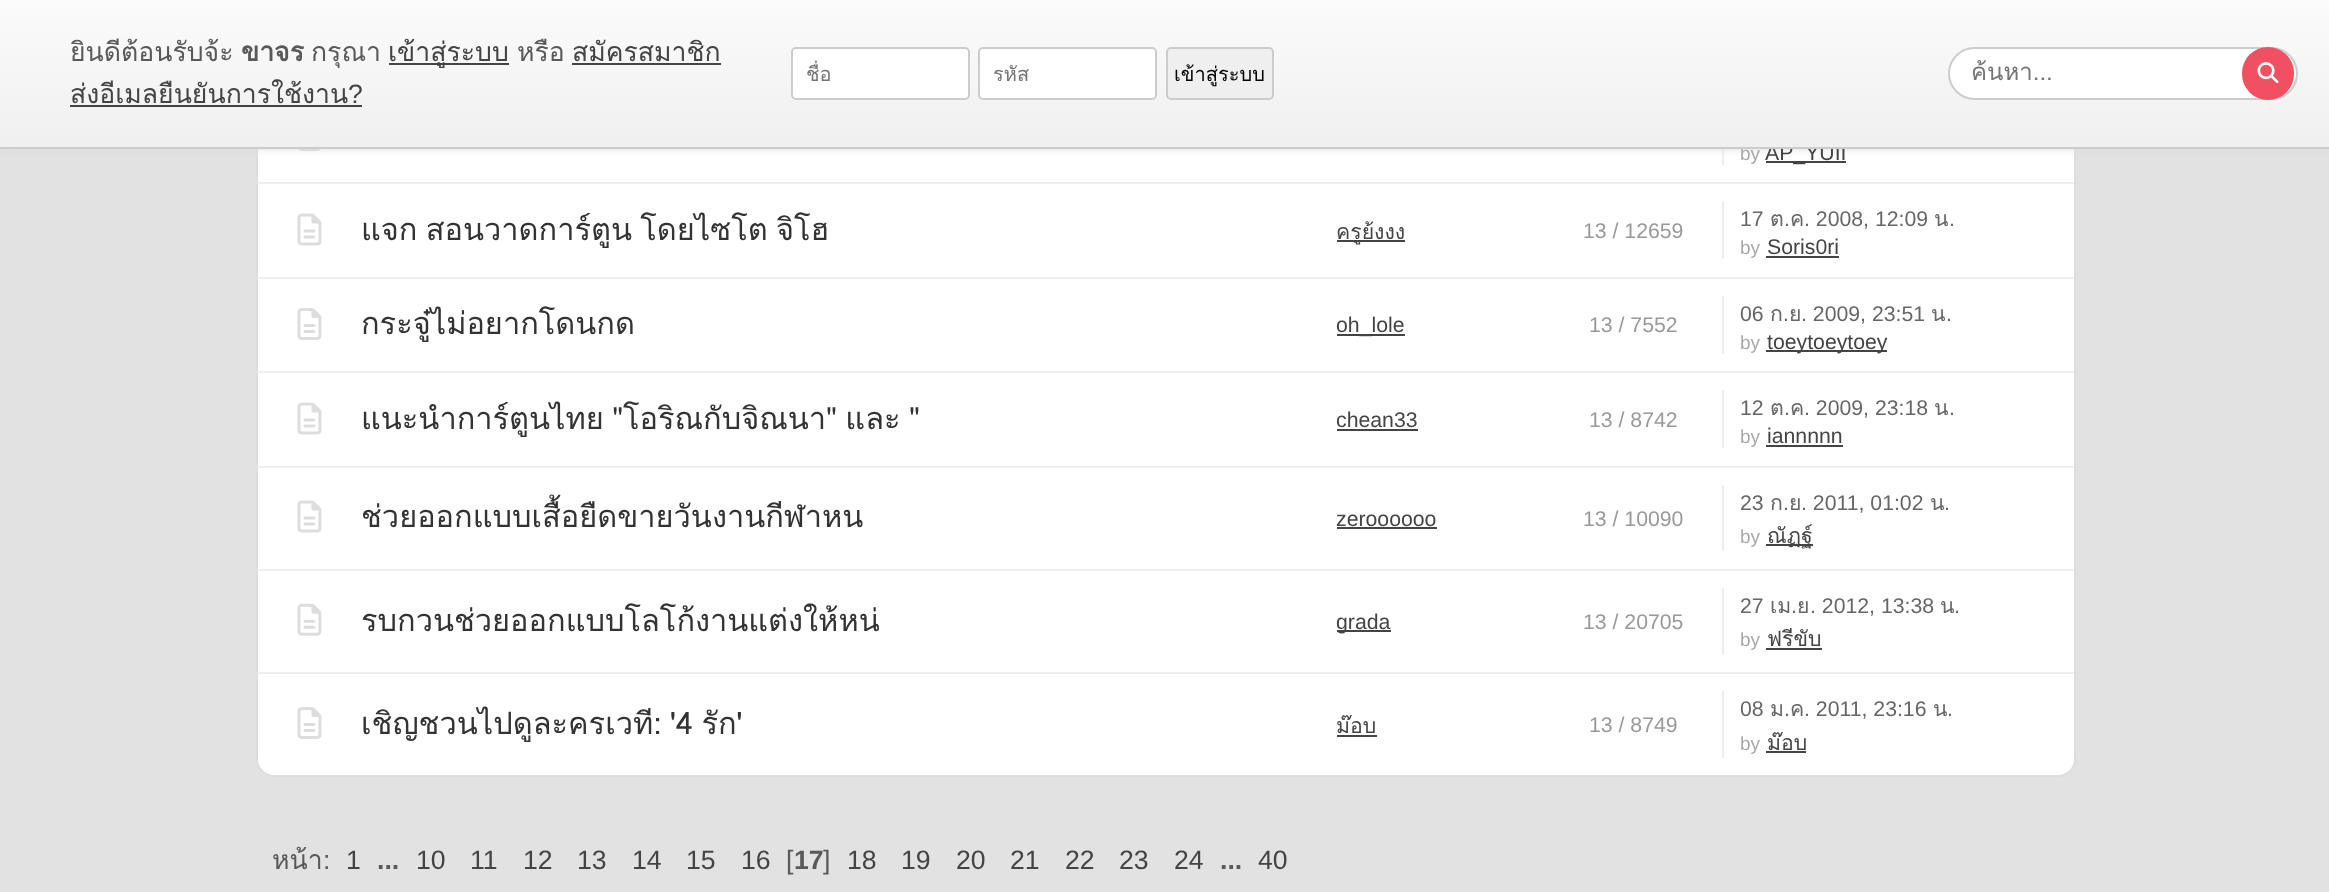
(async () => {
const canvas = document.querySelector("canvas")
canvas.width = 2329
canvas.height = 892
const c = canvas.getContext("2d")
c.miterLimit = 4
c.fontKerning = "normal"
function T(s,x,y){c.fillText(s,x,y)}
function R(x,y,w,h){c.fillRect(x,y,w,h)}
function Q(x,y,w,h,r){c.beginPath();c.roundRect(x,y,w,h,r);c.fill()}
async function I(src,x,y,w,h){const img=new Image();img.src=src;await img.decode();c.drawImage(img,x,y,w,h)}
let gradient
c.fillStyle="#e2e2e2"
R(0,0,2329,892)
c.fillStyle="#fff"
c.beginPath()
c.roundRect(257,-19,1818,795,17)
c.fill()
c.strokeStyle="#ddd"
c.lineWidth=2
c.stroke()
await I("2.png",298,149,23,2)
c.fillStyle="#eee"
R(1722,149,2,16)
c.fillStyle="#444"
R(1766,161,80,2)
c.fillStyle="#ddd"
c.filter="blur(4.5px)"
c.beginPath()
c.rect(0,0,2329,149)
c.fill()
c.filter="none"
c.font="19px Liberation Sans"
c.fillStyle="#aaa"
T("by",1740,160)
c.font="21.25px Liberation Sans"
c.fillStyle="#444"
T("AP_YUII",1765,160)
gradient = c.createLinearGradient(1165,0,1165,147)
gradient.addColorStop(0,"#fbfbfb")
gradient.addColorStop(1,"#f0f0f0")
c.fillStyle = gradient
R(0,0,2329,147)
c.fillStyle="#ccc"
R(0,147,2329,2)
c.font="26.6px Loma"
c.fillStyle="#595959"
T("ยินดีต้อนรับจ้ะ",70,61)
c.font="bold 26.6px Loma"
T("ขาจร",241,61)
c.font="26.6px Loma"
T("กรุณา",311,61)
c.fillStyle="#444"
R(389,63,120,2)
T("เข้าสู่ระบบ",388,61)
c.fillStyle="#595959"
T("หรือ",517,61)
c.fillStyle="#444"
T("สมัครสมาชิก",572,61)
R(572,63,149,2)
T("ส่งอีเมลยืนยันการใช้งาน",70,103)
c.font="26.6px Liberation Sans"
T("?",348,103)
R(70,105,292,2)
c.fillStyle="#fff"
c.beginPath()
c.roundRect(792,48,177,51,4)
c.fill()
c.strokeStyle="#ccc"
c.stroke()
c.save()
c.beginPath()
c.rect(807,58,147,31)
c.clip()
c.font="20px Loma"
c.fillStyle="#757575"
T("ชื่อ",806,81)
c.restore()
c.beginPath()
c.roundRect(979,48,177,51,4)
c.fill()
c.stroke()
c.font="20px Loma"
c.fillStyle="#757575"
T("รหัส",993,81)
c.fillStyle="#efefef"
c.beginPath()
c.roundRect(1167,48,106,51,4)
c.fill()
c.stroke()
c.fillStyle="#000"
T("เข้าสู่ระบบ",1174,81)
c.fillStyle="#fff"
c.beginPath()
c.roundRect(1949,48,348,51,25.5)
c.fill()
c.stroke()
c.save()
c.beginPath()
c.rect(1971,53,304,38)
c.clip()
c.font="24px Loma"
c.fillStyle="#757575"
T("ค้นหา...",1971,80)
c.restore()
c.fillStyle="#f05061"
Q(2242,47,52,53,26)
await I("1.png",2257,62,22,22)
c.fillStyle="#eee"
R(257,182,1817,2)
R(257,277,1817,2)
await I("3.png",297,213,25,33)
c.wordSpacing="-2px"
c.font="30.75px Loma"
c.fillStyle="#333"
T("แจก สอนวาดการ์ตูน โดยไซโต จิโฮ",361,240)
c.fillStyle="#444"
R(1337,240,68,2)
c.wordSpacing="0px"
c.font="21.25px Loma"
T("ครูย้งงง",1336,239)
c.font="21.25px Liberation Sans"
c.fillStyle="#999"
T("13 / 12659",1583,238)
c.fillStyle="#eee"
R(1722,201,2,58)
c.fillStyle="#666"
T("17",1740,226)
c.font="21.25px Loma"
T("ต",1770,226)
c.font="21.25px Liberation Sans"
T(".",1784,226)
c.font="21.25px Loma"
T("ค",1790,226)
c.font="21.25px Liberation Sans"
T(". 2008, 12:09",1804,226)
c.font="21.25px Loma"
T("น",1934,226)
c.font="21.25px Liberation Sans"
T(".",1949,226)
c.font="19px Liberation Sans"
c.fillStyle="#aaa"
T("by",1740,254)
c.font="21.25px Liberation Sans"
c.fillStyle="#444"
T("Soris0ri",1767,254)
R(1766,256,73,2)
c.fillStyle="#eee"
R(257,371,1817,2)
await I("4.png",297,308,25,32)
c.font="30.75px Loma"
c.fillStyle="#333"
T("กระจู๋ไม่อยากโดนกด",361,334)
c.fillStyle="#444"
R(1337,334,68,2)
c.font="21.25px Liberation Sans"
T("oh_lole",1336,332)
c.fillStyle="#999"
T("13 / 7552",1589,332)
c.fillStyle="#eee"
R(1722,296,2,58)
c.fillStyle="#666"
T("06",1740,321)
c.font="21.25px Loma"
T("ก",1770,321)
c.font="21.25px Liberation Sans"
T(".",1783,321)
c.font="21.25px Loma"
T("ย",1789,321)
c.font="21.25px Liberation Sans"
T(". 2009, 23:51",1801,321)
c.font="21.25px Loma"
T("น",1931,321)
c.font="21.25px Liberation Sans"
T(".",1946,321)
c.font="19px Liberation Sans"
c.fillStyle="#aaa"
T("by",1740,349)
c.fillStyle="#444"
R(1766,350,121,2)
c.font="21.25px Liberation Sans"
T("toeytoeytoey",1767,349)
c.fillStyle="#eee"
R(257,466,1817,2)
await I("3.png",297,402,25,33)
c.wordSpacing="-2px"
c.font="30.75px Loma"
c.fillStyle="#333"
T("แนะนำการ์ตูนไทย \"โอริณกับจิณนา\" และ \"",361,429)
c.wordSpacing="0px"
c.font="21.25px Liberation Sans"
c.fillStyle="#444"
T("chean33",1336,427)
R(1337,429,81,2)
c.fillStyle="#999"
T("13 / 8742",1589,427)
c.fillStyle="#eee"
R(1722,390,2,58)
c.fillStyle="#666"
T("12",1740,415)
c.font="21.25px Loma"
T("ต",1770,415)
c.font="21.25px Liberation Sans"
T(".",1784,415)
c.font="21.25px Loma"
T("ค",1790,415)
c.font="21.25px Liberation Sans"
T(". 2009, 23:18",1804,415)
c.font="21.25px Loma"
T("น",1934,415)
c.font="21.25px Liberation Sans"
T(".",1949,415)
c.font="19px Liberation Sans"
c.fillStyle="#aaa"
T("by",1740,443)
c.font="21.25px Liberation Sans"
c.fillStyle="#444"
T("iannnnn",1767,443)
R(1766,445,77,2)
c.fillStyle="#eee"
R(257,569,1817,2)
await I("3.png",297,500,25,33)
c.font="30.75px Loma"
c.fillStyle="#333"
T("ช่วยออกแบบเสื้อยืดขายวันงานกีฬาหน",361,527)
c.font="21.25px Liberation Sans"
c.fillStyle="#444"
T("zeroooooo",1336,526)
R(1337,527,100,2)
c.fillStyle="#999"
T("13 / 10090",1583,526)
c.fillStyle="#eee"
R(1722,485,2,66)
c.fillStyle="#666"
T("23",1740,510)
c.font="21.25px Loma"
T("ก",1770,510)
c.font="21.25px Liberation Sans"
T(".",1783,510)
c.font="21.25px Loma"
T("ย",1789,510)
c.font="21.25px Liberation Sans"
T(". 2011, 01:02",1801,510)
c.font="21.25px Loma"
T("น",1930,510)
c.font="21.25px Liberation Sans"
T(".",1944,510)
c.font="19px Liberation Sans"
c.fillStyle="#aaa"
T("by",1740,543)
c.fillStyle="#444"
R(1766,544,47,2)
c.font="21.25px Loma"
T("ณัฏฐ์",1767,543)
c.fillStyle="#eee"
R(257,672,1817,2)
await I("5.png",297,603,25,33)
c.font="30.75px Loma"
c.fillStyle="#333"
T("รบกวนช่วยออกแบบโลโก้งานแต่งให้หน่",361,631)
c.fillStyle="#444"
R(1337,630,54,2)
c.font="21.25px Liberation Sans"
T("grada",1336,629)
c.fillStyle="#999"
T("13 / 20705",1583,629)
c.fillStyle="#eee"
R(1722,588,2,67)
c.fillStyle="#666"
T("27",1740,613)
c.font="21.25px Loma"
T("เม",1770,613)
c.font="21.25px Liberation Sans"
T(".",1791,613)
c.font="21.25px Loma"
T("ย",1797,613)
c.font="21.25px Liberation Sans"
T(". 2012, 13:38",1810,613)
c.font="21.25px Loma"
T("น",1940,613)
c.font="21.25px Liberation Sans"
T(".",1954,613)
c.font="19px Liberation Sans"
c.fillStyle="#aaa"
T("by",1740,646)
c.font="21.25px Loma"
c.fillStyle="#444"
T("ฟรีขับ",1767,646)
R(1766,648,56,2)
await I("4.png",297,707,25,32)
c.wordSpacing="-2px"
c.font="30.75px Loma"
c.fillStyle="#333"
T("เชิญชวนไปดูละครเวที: '4 รัก'",361,734)
c.wordSpacing="0px"
c.font="21.25px Loma"
c.fillStyle="#444"
T("ม๊อบ",1336,733)
R(1337,735,40,2)
c.font="21.25px Liberation Sans"
c.fillStyle="#999"
T("13 / 8749",1589,732)
c.fillStyle="#eee"
R(1722,691,2,67)
c.fillStyle="#666"
T("08",1740,716)
c.font="21.25px Loma"
T("ม",1770,716)
c.font="21.25px Liberation Sans"
T(".",1784,716)
c.font="21.25px Loma"
T("ค",1790,716)
c.font="21.25px Liberation Sans"
T(". 2011, 23:16",1804,716)
c.font="21.25px Loma"
T("น",1933,716)
c.font="21.25px Liberation Sans"
T(".",1947,716)
c.font="19px Liberation Sans"
c.fillStyle="#aaa"
T("by",1740,750)
c.font="21.25px Loma"
c.fillStyle="#444"
T("ม๊อบ",1767,750)
R(1766,751,40,2)
c.font="26.6px Loma"
c.fillStyle="#595959"
T("หน้า",272,869)
c.font="26.6px Liberation Sans"
T(":",323,869)
c.fillStyle="#444"
T("1",346,869)
c.font="bold 26.6px Liberation Sans"
c.fillStyle="#595959"
T("...",377,869)
c.font="26.6px Liberation Sans"
c.fillStyle="#444"
T("10",416,869)
T("11",470,869)
T("12",523,869)
T("13",577,869)
T("14",632,869)
T("15",686,869)
T("16",741,869)
c.fillStyle="#595959"
T("[",786,869)
c.font="bold 26.6px Liberation Sans"
T("17",794,869)
c.font="26.6px Liberation Sans"
T("]",823,869)
c.fillStyle="#444"
T("18",847,869)
T("19",901,869)
T("20",956,869)
T("21",1010,869)
T("22",1065,869)
T("23",1119,869)
T("24",1174,869)
c.font="bold 26.6px Liberation Sans"
c.fillStyle="#595959"
T("...",1220,869)
c.font="26.6px Liberation Sans"
c.fillStyle="#444"
T("40",1258,869)
})()
